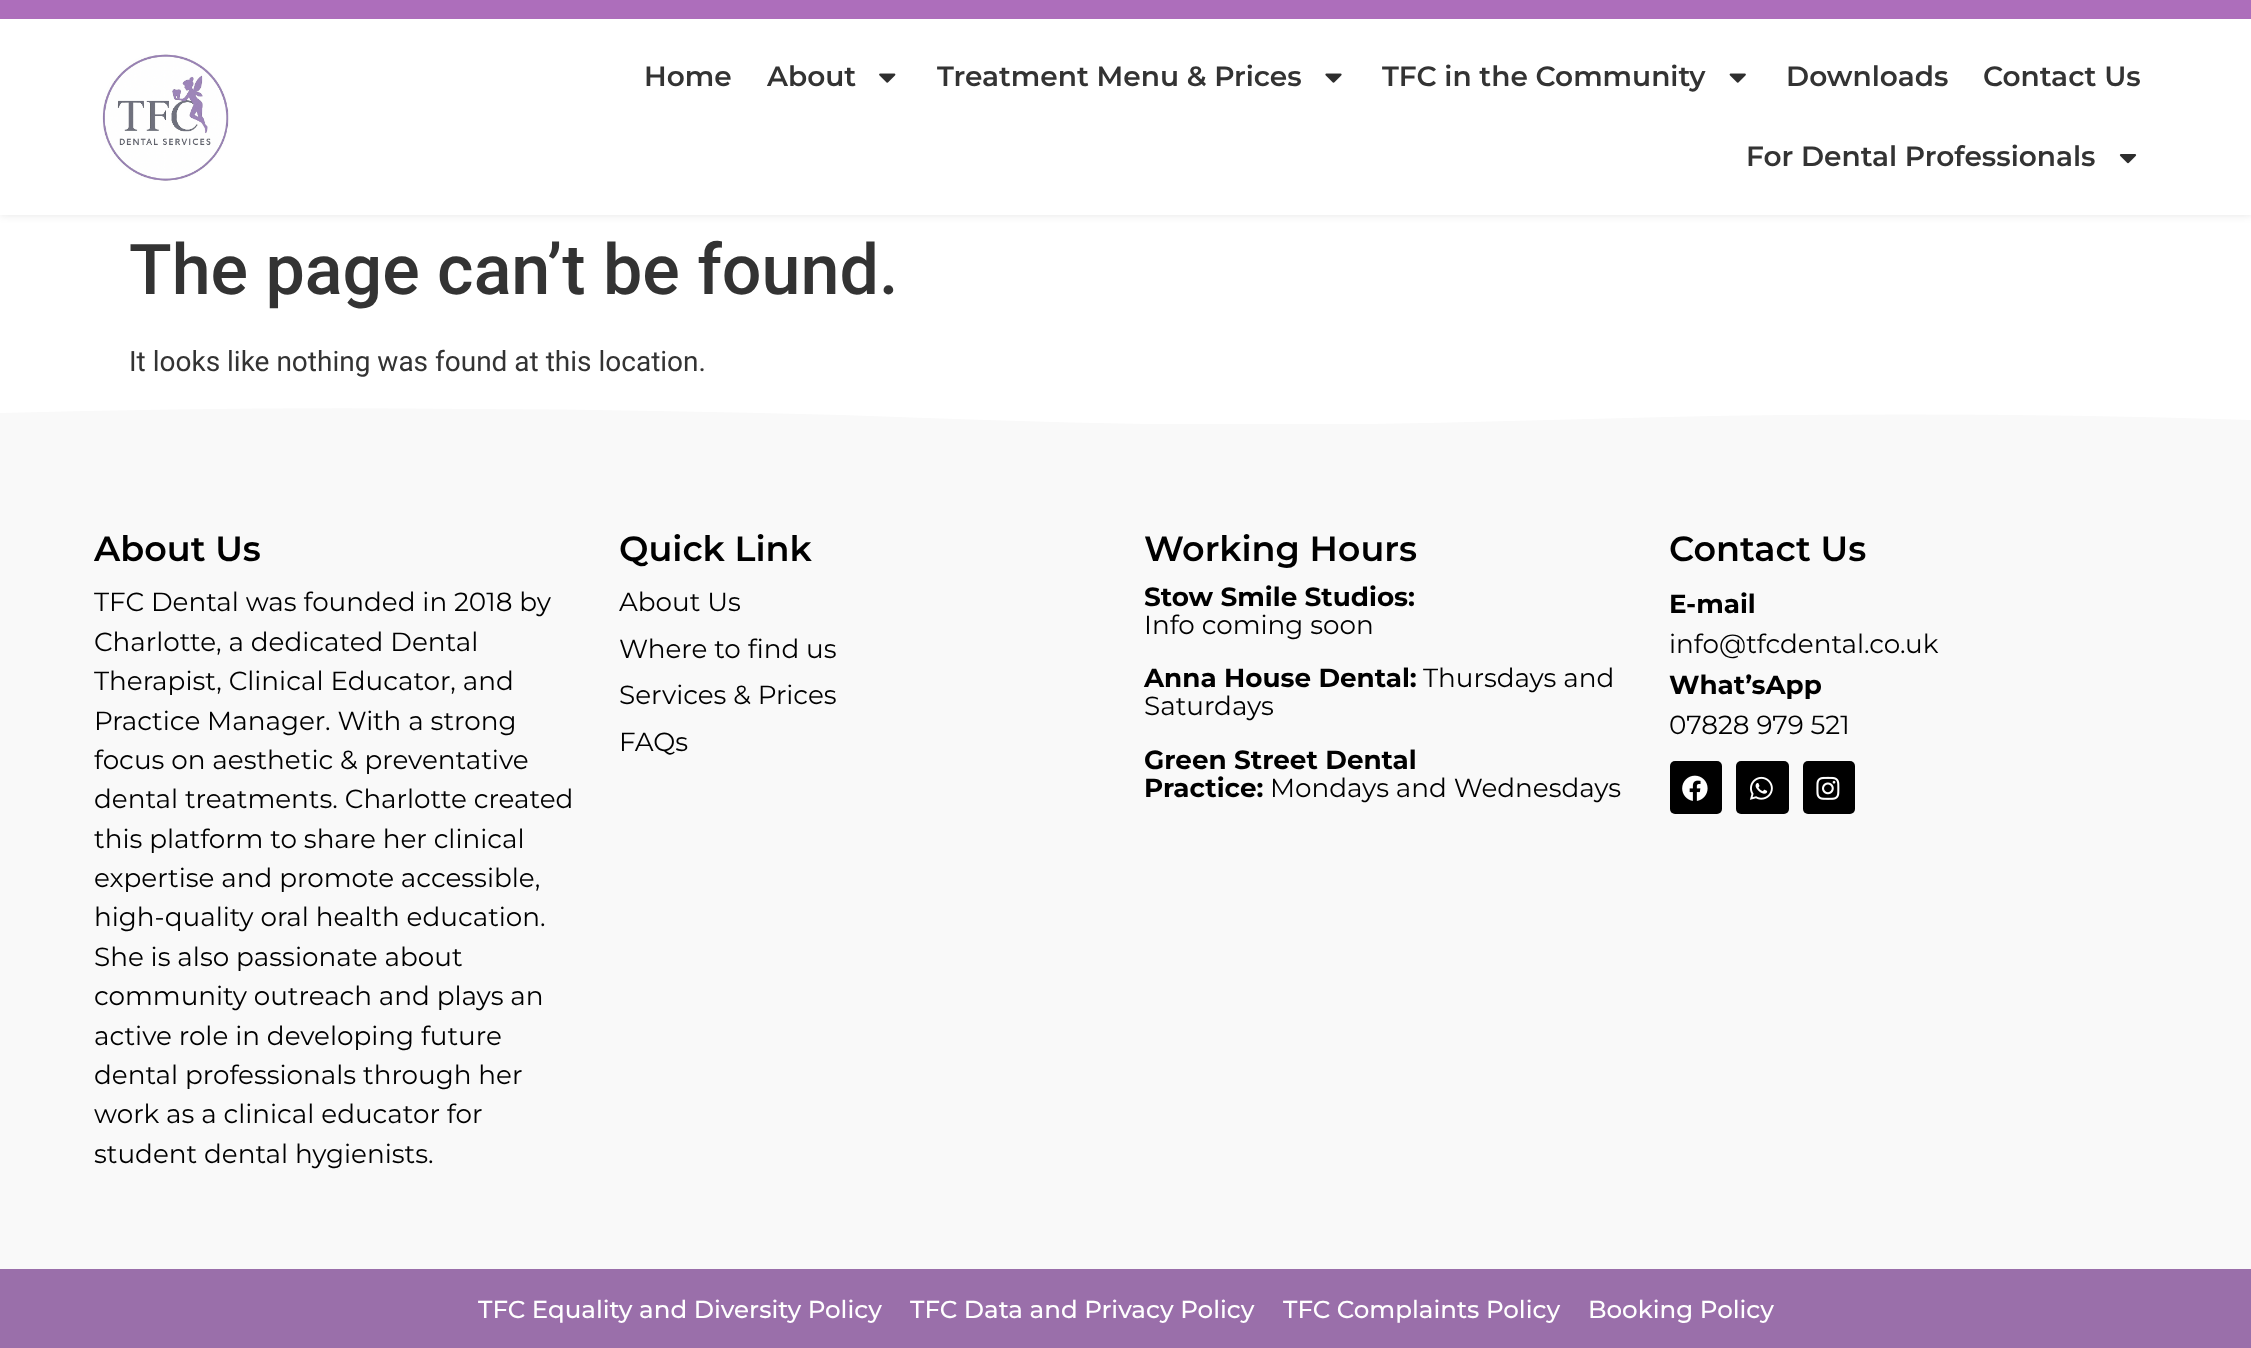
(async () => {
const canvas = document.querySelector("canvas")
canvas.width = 2251
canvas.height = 1348
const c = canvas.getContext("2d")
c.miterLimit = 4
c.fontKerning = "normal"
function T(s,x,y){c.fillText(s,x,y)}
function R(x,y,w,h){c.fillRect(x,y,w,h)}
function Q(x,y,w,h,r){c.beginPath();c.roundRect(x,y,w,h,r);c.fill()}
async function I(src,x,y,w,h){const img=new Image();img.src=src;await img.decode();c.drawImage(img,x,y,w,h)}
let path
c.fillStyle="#fff"
R(0,0,2251,1348)
c.fillStyle="#ad6ebb"
R(0,0,2251,19)
c.save()
c.beginPath()
c.rect(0,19,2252,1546)
c.clip()
c.fillStyle="#0000001a"
c.filter="blur(4.5px)"
c.beginPath()
c.rect(0,19,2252,196)
c.fill()
c.filter="none"
c.restore()
c.fillStyle="#fff"
R(0,19,2251,196)
await I("1.png",102,54,127,127)
c.font="600 28px Montserrat"
c.fillStyle="#333"
T("Home",644,86)
T("About",767,86)
await I("2.png",879,73,17,10)
T("Treatment Menu & Prices",937,86)
await I("3.png",1325,73,17,10)
T("TFC in the Community",1382,86)
await I("4.png",1729,73,17,10)
T("Downloads",1786,86)
T("Contact Us",1983,86)
T("For Dental Professionals",1746,166)
await I("5.png",2119,154,18,10)
c.font="500 70px Roboto"
T("The page can’t be found.",129,294)
c.font="28px Roboto"
T("It looks like nothing was found at this location.",129,371)
c.fillStyle="#f9f9f9"
R(0,408,2251,861)
c.save()
c.beginPath()
c.rect(0,406,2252,18)
c.clip()
c.fillStyle="#fff"
path = new Path2D("M470 409c124 0 248 3 372 6c140 5 279 10 418 10c83 0 166-2 249-4l158-4c195-4 391-3 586 3v-13h-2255v6c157-4 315-6 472-4z")
c.fill(path)
c.restore()
c.font="600 35px Montserrat"
c.fillStyle="#000"
T("About Us",94,561)
c.font="26.25px Montserrat"
T("TFC Dental was founded in 2018 by",94,611)
T("Charlotte, a dedicated Dental",94,651)
T("Therapist, Clinical Educator, and",94,690)
T("Practice Manager. With a strong",94,730)
T("focus on aesthetic & preventative",94,769)
T("dental treatments. Charlotte created",94,808)
T("this platform to share her clinical",94,848)
T("expertise and promote accessible,",94,887)
T("high-quality oral health education.",94,926)
T("She is also passionate about",94,966)
T("community outreach and plays an",94,1005)
T("active role in developing future",94,1045)
T("dental professionals through her",94,1084)
T("work as a clinical educator for",94,1123)
T("student dental hygienists.",94,1163)
c.font="600 35px Montserrat"
T("Quick Link",619,561)
c.font="26.25px Montserrat"
T("About Us",619,611)
T("Where to find us",619,658)
T("Services & Prices",619,704)
T("FAQs",619,751)
c.font="600 35px Montserrat"
T("Working Hours",1144,561)
c.font="bold 26.25px Montserrat"
T("Stow Smile Studios:",1144,606)
c.font="26.25px Montserrat"
T("Info coming soon",1144,634)
c.font="bold 26.25px Montserrat"
T("Anna House Dental:",1144,687)
c.font="26.25px Montserrat"
T("Thursdays and",1423,687)
T("Saturdays",1144,715)
c.font="bold 26.25px Montserrat"
T("Green Street Dental",1144,769)
T("Practice:",1144,797)
c.font="26.25px Montserrat"
T("Mondays and Wednesdays",1270,797)
c.font="600 35px Montserrat"
T("Contact Us",1669,561)
c.font="bold 26.25px Montserrat"
T("E-mail",1669,613)
c.font="26.25px Montserrat"
T("info@tfcdental.co.uk",1669,653)
c.font="bold 26.25px Montserrat"
T("What’sApp",1669,694)
c.font="26.25px Montserrat"
T("07828 979 521",1669,734)
Q(1670,761,52,53,5)
await I("6.png",1682,775,26,26)
Q(1736,761,53,53,5)
await I("7.png",1749,776,24,24)
Q(1803,761,52,53,5)
await I("8.png",1816,776,24,24)
c.fillStyle="#9a6faa"
R(0,1269,2251,79)
c.font="500 24.5px Montserrat"
c.fillStyle="#fff"
T("TFC Equality and Diversity Policy",478,1318)
T("TFC Data and Privacy Policy",910,1318)
T("TFC Complaints Policy",1283,1318)
T("Booking Policy",1588,1318)
})()
